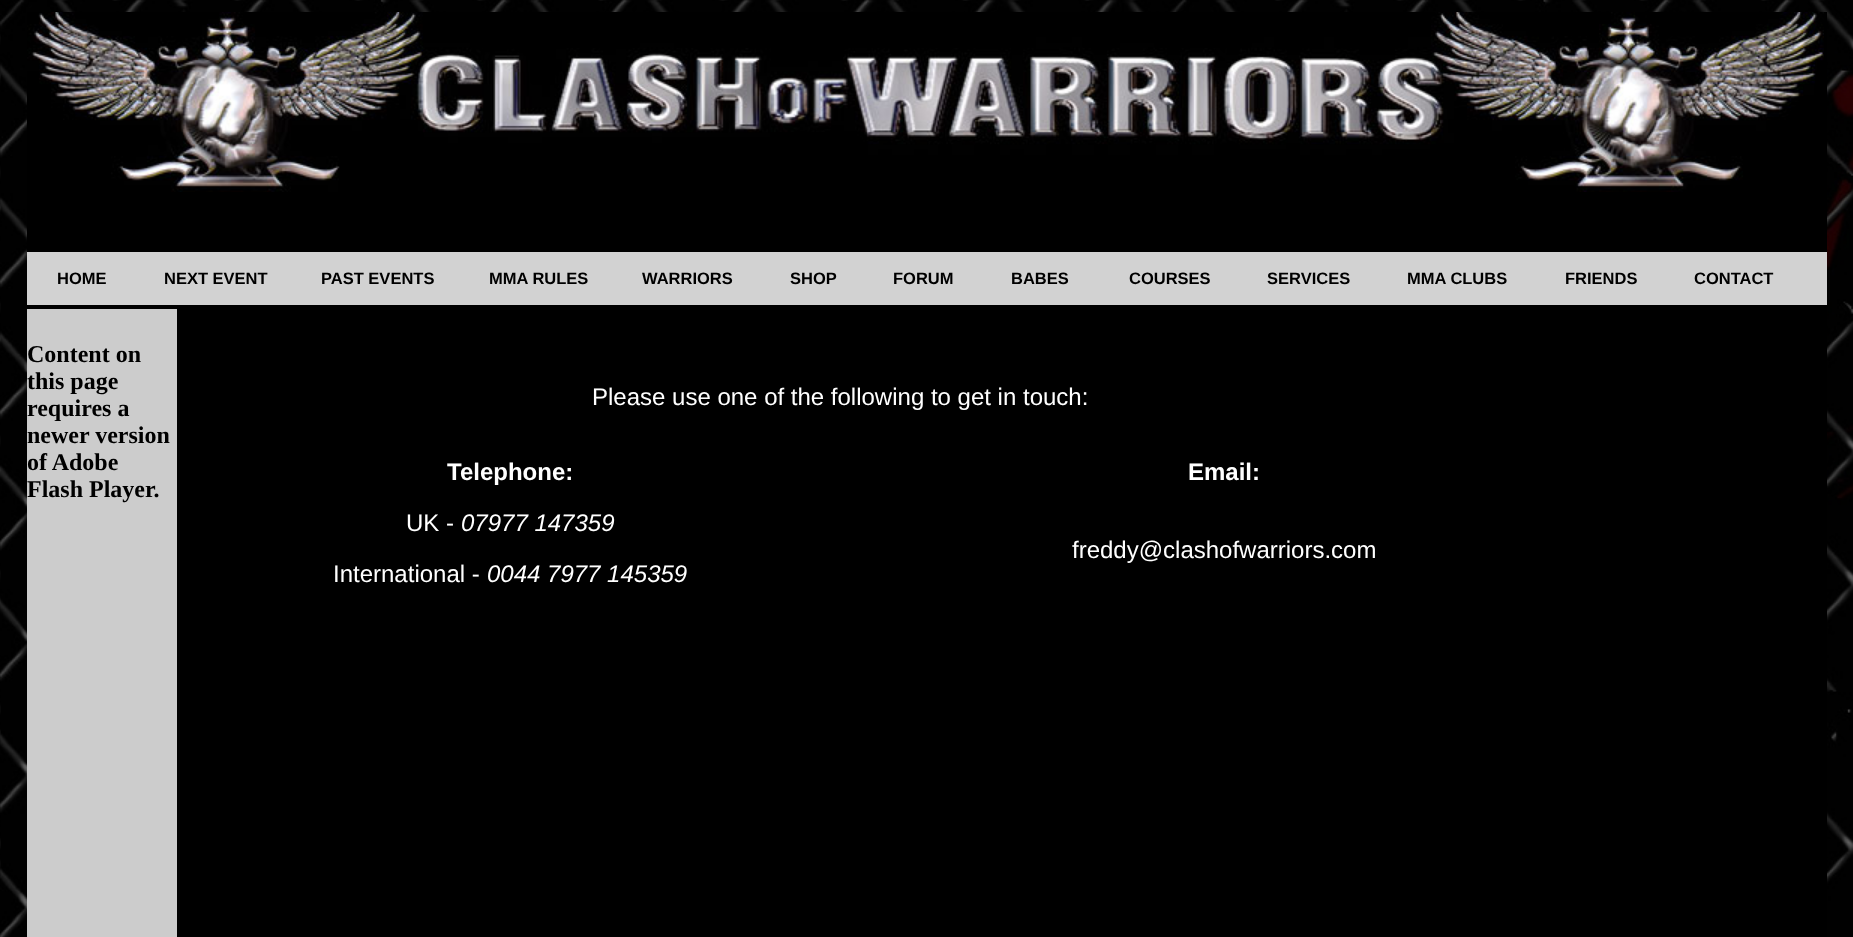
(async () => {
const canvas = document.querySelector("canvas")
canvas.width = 1853
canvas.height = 937
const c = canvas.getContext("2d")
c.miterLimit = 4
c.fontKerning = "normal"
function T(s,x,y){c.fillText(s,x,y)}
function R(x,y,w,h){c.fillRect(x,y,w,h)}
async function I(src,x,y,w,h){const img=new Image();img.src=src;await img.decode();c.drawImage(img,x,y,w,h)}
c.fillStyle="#fff"
R(0,0,1853,937)
await I("1.png",0,0,1853,937)
c.fillStyle="#000"
R(27,12,1800,297)
await I("2.png",27,12,1797,180)
c.fillStyle="#d2d2d2"
R(27,252,1800,53)
c.font="bold 16.5px Liberation Sans"
c.fillStyle="#000"
T("HOME",57,284)
T("NEXT EVENT",164,284)
T("PAST EVENTS",321,284)
T("MMA RULES",489,284)
T("WARRIORS",642,284)
T("SHOP",790,284)
T("FORUM",893,284)
T("BABES",1011,284)
T("COURSES",1129,284)
T("SERVICES",1267,284)
T("MMA CLUBS",1407,284)
T("FRIENDS",1565,284)
T("CONTACT",1694,284)
R(177,309,1650,628)
c.fillStyle="#ccc"
R(27,309,150,628)
c.font="bold 24px Liberation Serif"
c.fillStyle="#000"
T("Content on",27,362)
T("this page",27,389)
T("requires a",27,416)
T("newer version",27,443)
T("of Adobe",27,470)
T("Flash Player.",27,497)
c.font="24px Liberation Sans"
c.fillStyle="#fff"
T("Please use one of the following to get in touch:",592,405)
c.font="bold 24px Liberation Sans"
T("Telephone:",447,480)
c.font="24px Liberation Sans"
T("UK -",406,531)
c.font="italic 24px Liberation Sans"
T("07977 147359",461,531)
c.font="24px Liberation Sans"
T("International -",333,582)
c.font="italic 24px Liberation Sans"
T("0044 7977 145359",487,582)
c.font="bold 24px Liberation Sans"
T("Email:",1188,480)
c.font="24px Liberation Sans"
T("freddy@clashofwarriors.com",1072,558)
})()
